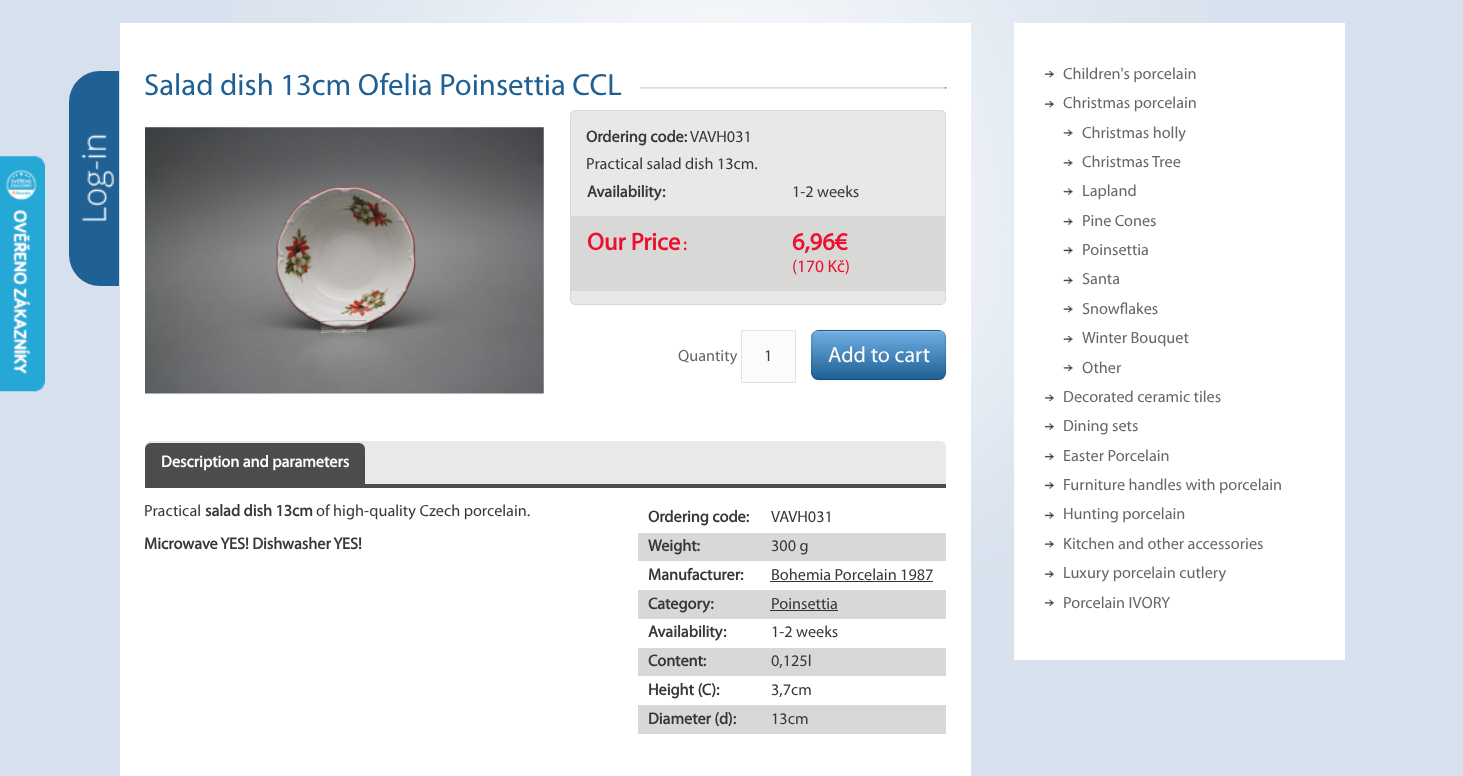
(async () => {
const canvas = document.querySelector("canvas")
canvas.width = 1463
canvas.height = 776
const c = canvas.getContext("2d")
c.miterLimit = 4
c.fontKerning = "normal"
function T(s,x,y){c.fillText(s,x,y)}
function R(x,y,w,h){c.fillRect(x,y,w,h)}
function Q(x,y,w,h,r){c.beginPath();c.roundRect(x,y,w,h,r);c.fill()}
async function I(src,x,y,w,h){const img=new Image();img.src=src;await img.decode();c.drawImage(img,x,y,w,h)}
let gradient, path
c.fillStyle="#d7e1ed"
R(0,0,1463,776)
await I("1.png",233,0,974,572)
await I("2.png",0,156,45,236)
c.fillStyle="#206195"
c.beginPath()
c.roundRect(69,71,50,215,[31,0,0,31])
c.fill()
await I("3.png",81,134,33,88)
c.fillStyle="#fff"
R(120,23,851,753)
await I("4.png",640,87,307,2)
c.font="30.75px Myriad"
c.fillStyle="#206195"
T("Salad dish 13cm Ofelia Poinsettia CCL",144,95)
await I("5.png",145,127,399,267)
c.fillStyle="#e8e8e8"
c.beginPath()
c.roundRect(570.5,110.5,375,194,4.5)
c.fill()
c.strokeStyle="#d8d9d7"
c.stroke()
c.font="bold 16.25px Myriad"
c.fillStyle="#353738"
T("Ordering code:",586,142)
c.font="16.25px Myriad"
T("VAVH031",690,142)
T("Practical salad dish 13cm.",586,169)
c.font="bold 16.25px Myriad"
T("Availability",587,197)
T(":",662,197)
c.font="16.25px Myriad"
T("1-2 weeks",792,197)
c.fillStyle="#d8d9d7"
R(571,216,374,75)
c.font="bold 24.5px Myriad"
c.fillStyle="#ef0e2e"
T("Our Price",587,250)
c.font="bold 17px Myriad"
T(":",683,250)
c.font="bold 24.5px Myriad"
T("6,96€",792,250)
c.font="17.5px Myriad"
T("(170 Kč)",792,272)
c.font="16.25px Myriad"
c.fillStyle="#666"
T("Quantity",678,361)
c.fillStyle="#fbfbfb"
c.beginPath()
c.rect(741.5,330.5,54,52)
c.fill()
c.strokeStyle="#e3e3e3"
c.stroke()
c.fillStyle="#353738"
T("1",764,361)
c.fillStyle="#0000000d"
c.filter="blur(1px)"
c.beginPath()
c.roundRect(811,331,135,50,8)
c.fill()
c.filter="none"
c.fillStyle="#206195"
Q(811,330,135,50,8)
c.save()
c.beginPath()
c.roundRect(811,330,135,50,8)
c.clip()
gradient = c.createLinearGradient(879,331,879,379)
gradient.addColorStop(0,"#6fafe3")
gradient.addColorStop(1,"#206195")
c.fillStyle = gradient
R(811,331,135,48)
c.restore()
c.fillStyle="#ffffff33"
path = new Path2D("M819 332h120c3 0 6 3 6 7v-2c0-3-3-6-6-6h-120c-2 0-5 1-5 4c1-2 3-3 5-3z")
c.fill(path)
path = new Path2D("M943.5 377.5c-1 1-3 2-4.5 2h-120c-2 0-4-1-5-2")
c.strokeStyle="#00000040"
c.lineWidth=1.2
c.stroke(path)
path = new Path2D("M814 377.5c-3-3-2-7-2-11v-11.5c0-28-3-24.5 27-24.5h80c29.5 0 26.5-3.5 26.5 24.5v11.5c0 4 1 8-2 11")
c.strokeStyle="#0000001a"
c.stroke(path)
c.font="22px Myriad"
c.fillStyle="#fff"
T("Add to cart",828,362)
c.fillStyle="#e9e9e9"
c.beginPath()
c.roundRect(145,441,801,47,[6,6,0,0])
c.fill()
c.fillStyle="#4c4c4d"
R(145,484,801,4)
c.beginPath()
c.roundRect(145,443,220,41,[6,6,0,0])
c.fill()
c.font="bold 16.25px Myriad"
c.fillStyle="#fff"
T("Description and parameters",161,467)
c.font="16.25px Myriad"
c.fillStyle="#353738"
T("Practical",144,516)
c.font="bold 16.25px Myriad"
T("salad dish 13cm",205,516)
c.font="16.25px Myriad"
T("of high-quality Czech porcelain.",316,516)
c.font="bold 16.25px Myriad"
T("Microwave YES! Dishwasher YES!",144,549)
T("Ordering code:",648,522)
c.font="16.25px Myriad"
T("VAVH031",771,522)
c.fillStyle="#d8d9d7"
R(638,533,308,28)
c.font="bold 16.25px Myriad"
c.fillStyle="#353738"
T("Weight:",648,551)
c.font="16.25px Myriad"
T("300 g",771,551)
c.font="bold 16.25px Myriad"
T("Manufacturer:",648,580)
c.font="16.25px Myriad"
T("Bohemia Porcelain 1987",771,580)
c.fillStyle="#333"
R(770,581,163,1)
c.fillStyle="#d8d9d7"
R(638,590,308,29)
c.font="bold 16.25px Myriad"
c.fillStyle="#353738"
T("Category:",648,609)
c.font="16.25px Myriad"
T("Poinsettia",771,609)
c.fillStyle="#333"
R(770,610,68,1)
c.font="bold 16.25px Myriad"
c.fillStyle="#353738"
T("Availability:",648,637)
c.font="16.25px Myriad"
T("1-2 weeks",771,637)
c.fillStyle="#d8d9d7"
R(638,648,308,28)
c.font="bold 16.25px Myriad"
c.fillStyle="#353738"
T("Content:",648,666)
c.font="16.25px Myriad"
T("0,125l",771,666)
c.font="bold 16.25px Myriad"
T("Height (C):",648,695)
c.font="16.25px Myriad"
T("3,7cm",771,695)
c.fillStyle="#d8d9d7"
R(638,705,308,29)
c.font="bold 16.25px Myriad"
c.fillStyle="#353738"
T("Diameter (d):",648,724)
c.font="16.25px Myriad"
T("13cm",771,724)
c.fillStyle="#fff"
R(1014,23,331,637)
await I("6.png",1045,71,9,7)
c.fillStyle="#666"
T("Children's porcelain",1063,79)
await I("6.png",1045,101,9,7)
T("Christmas porcelain",1063,108)
await I("7.png",1063,129,10,7)
T("Christmas holly",1082,138)
await I("7.png",1063,159,10,7)
T("Christmas Tree",1082,167)
await I("8.png",1063,188,10,7)
T("Lapland",1082,196)
await I("8.png",1063,218,10,7)
T("Pine Cones",1082,226)
await I("9.png",1063,247,10,7)
T("Poinsettia",1082,255)
await I("9.png",1063,277,10,7)
T("Santa",1082,284)
await I("10.png",1063,306,10,7)
T("Snowflakes",1082,314)
await I("10.png",1063,336,10,7)
T("Winter Bouquet",1082,343)
await I("7.png",1063,364,10,7)
T("Other",1082,373)
await I("11.png",1045,394,9,7)
T("Decorated ceramic tiles",1063,402)
await I("12.png",1045,423,9,7)
T("Dining sets",1063,431)
await I("12.png",1045,453,9,7)
T("Easter Porcelain",1063,461)
await I("13.png",1045,482,9,7)
T("Furniture handles with porcelain",1063,490)
await I("13.png",1045,512,9,7)
T("Hunting porcelain",1063,519)
await I("6.png",1045,541,9,7)
T("Kitchen and other accessories",1063,549)
await I("6.png",1045,571,9,7)
T("Luxury porcelain cutlery",1063,578)
await I("11.png",1045,599,9,7)
T("Porcelain IVORY",1063,608)
})()
